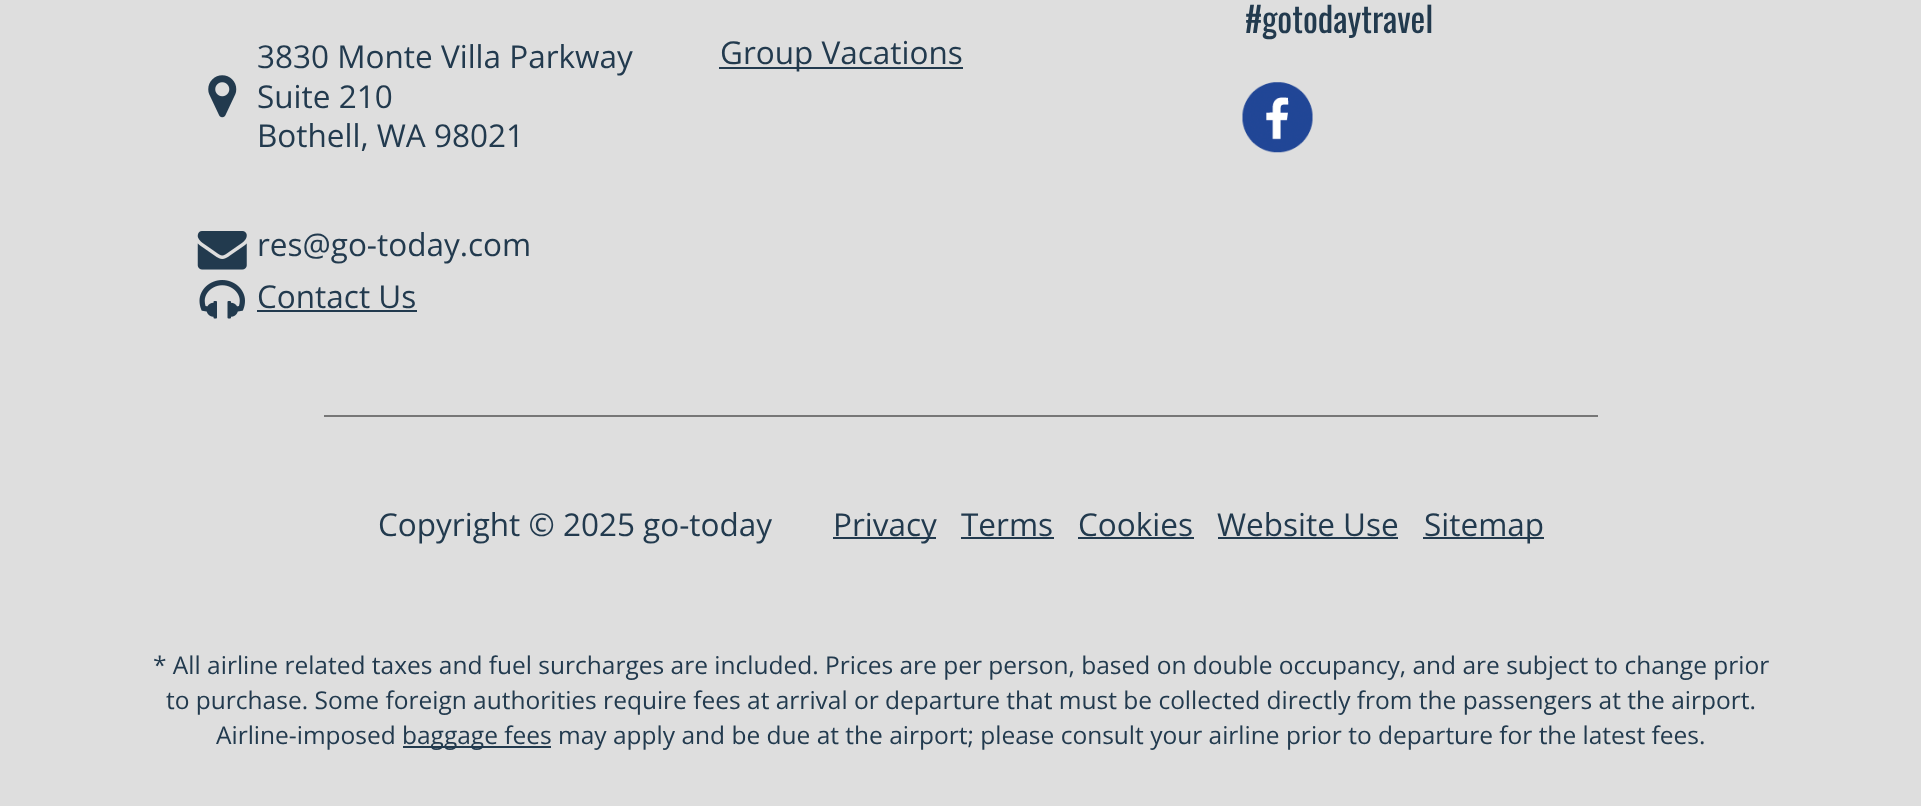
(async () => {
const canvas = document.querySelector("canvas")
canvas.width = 1921
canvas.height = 806
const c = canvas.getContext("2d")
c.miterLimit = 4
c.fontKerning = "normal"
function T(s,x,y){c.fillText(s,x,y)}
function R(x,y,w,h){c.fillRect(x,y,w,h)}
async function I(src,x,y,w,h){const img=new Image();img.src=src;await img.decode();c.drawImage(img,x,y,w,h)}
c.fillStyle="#dedede"
R(0,0,1921,806)
c.font="35px Oswald"
c.fillStyle="#223a4e"
T("#gotodaytravel",1245,33)
await I("1.png",1242,82,71,71)
await I("2.png",208,75,29,43)
c.font="31.5px Open Sans"
T("3830 Monte Villa Parkway",257,68)
T("Suite 210",257,108)
T("Bothell, WA 98021",257,147)
await I("3.png",197,231,50,39)
T("res@go-today.com",257,256)
await I("4.png",199,280,46,39)
T("Contact Us",257,308)
R(257,310,160,2)
R(719,67,244,2)
T("Group Vacations",720,64)
c.fillStyle="#777"
R(324,415,1274,2)
c.fillStyle="#223a4e"
T("Copyright © 2025 go-today",378,536)
R(833,537,103,2)
T("Privacy",833,536)
T("Terms",961,536)
R(961,537,93,2)
T("Cookies",1078,536)
R(1078,537,116,2)
T("Website Use",1217,536)
R(1218,537,180,2)
R(1423,537,121,2)
T("Sitemap",1424,536)
c.font="24.5px Open Sans"
T("* All airline related taxes and fuel surcharges are included. Prices are per person, based on double occupancy, and are subject to change prior",153,674)
T("to purchase. Some foreign authorities require fees at arrival or departure that must be collected directly from the passengers at the airport.",166,709)
T("Airline-imposed",216,744)
R(403,746,148,2)
T("baggage fees may apply and be due at the airport; please consult your airline prior to departure for the latest fees.",402,744)
})()
